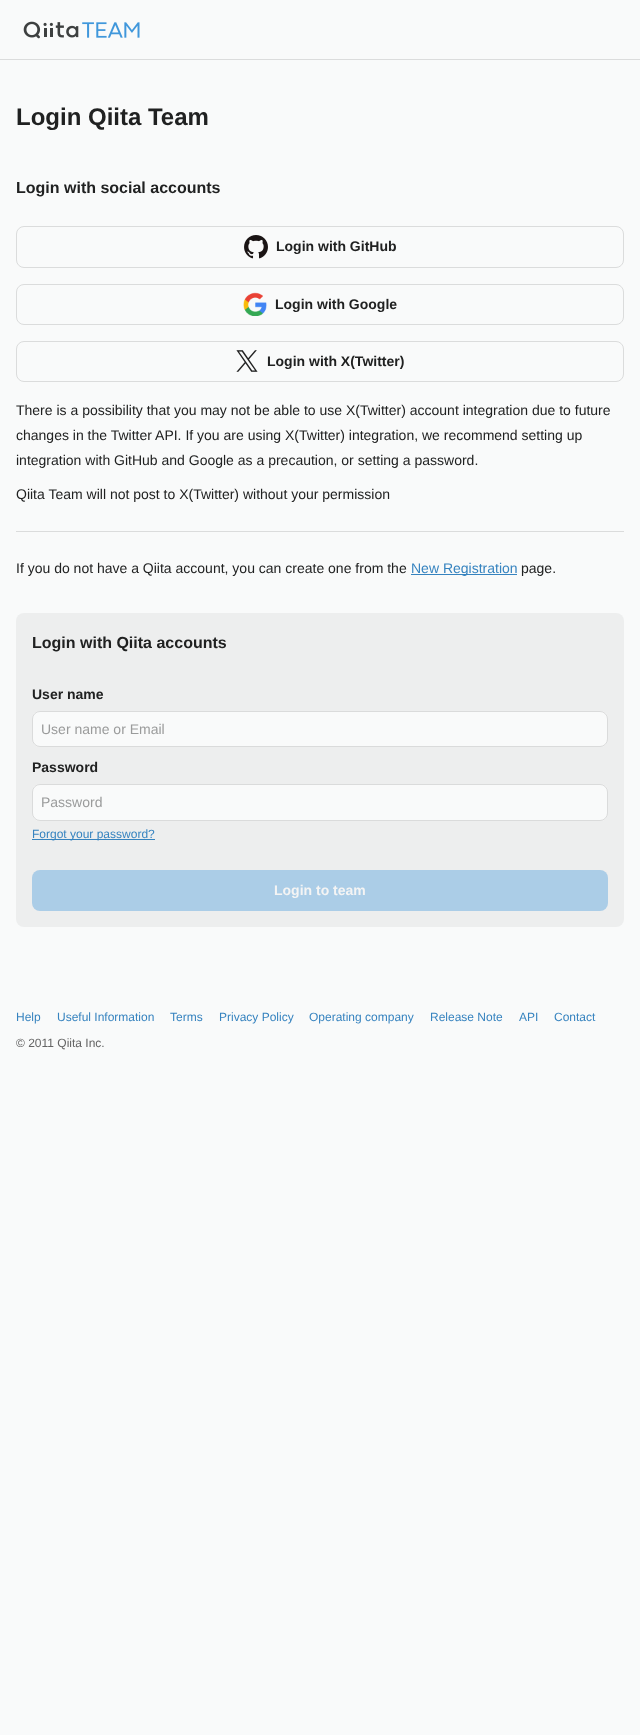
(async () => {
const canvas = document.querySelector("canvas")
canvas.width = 640
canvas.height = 1735
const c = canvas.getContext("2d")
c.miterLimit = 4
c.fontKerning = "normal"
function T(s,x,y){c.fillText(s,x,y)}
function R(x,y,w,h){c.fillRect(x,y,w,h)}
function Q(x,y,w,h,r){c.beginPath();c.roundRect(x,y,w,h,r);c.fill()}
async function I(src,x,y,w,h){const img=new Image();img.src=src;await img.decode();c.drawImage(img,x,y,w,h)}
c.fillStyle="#f9fafa"
R(0,0,640,1735)
c.fillStyle="#dbdcdc"
R(0,59,640,1)
await I("1.png",23,21,117,18)
c.font="bold 24px Liberation Sans"
c.fillStyle="#202121"
T("Login Qiita Team",16,125)
c.font="bold 16px Liberation Sans"
T("Login with social accounts",16,193)
c.beginPath()
c.roundRect(16.5,226.5,607,41,7.5)
c.strokeStyle="#dbdcdc"
c.stroke()
await I("2.png",244,235,24,24)
c.font="bold 14px Liberation Sans"
T("Login with GitHub",276,251)
c.beginPath()
c.roundRect(16.5,284.5,607,40,7.5)
c.stroke()
await I("3.png",243,292,24,24)
T("Login with Google",275,309)
c.beginPath()
c.roundRect(16.5,341.5,607,40,7.5)
c.stroke()
await I("4.png",236,350,22,22)
T("Login with X(Twitter)",267,366)
c.font="14px Liberation Sans"
T("There is a possibility that you may not be able to use X(Twitter) account integration due to future",16,415)
T("changes in the Twitter API. If you are using X(Twitter) integration, we recommend setting up",16,440)
T("integration with GitHub and Google as a precaution, or setting a password.",16,465)
T("Qiita Team will not post to X(Twitter) without your permission",16,499)
c.fillStyle="#dbdcdc"
R(16,531,608,1)
c.fillStyle="#202121"
T("If you do not have a Qiita account, you can create one from the",16,573)
c.fillStyle="#3683bf"
R(411,574,106,1)
T("New Registration",411,573)
c.fillStyle="#202121"
T("page.",521,573)
c.fillStyle="#edeeee"
Q(16,613,608,314,8)
c.font="bold 16px Liberation Sans"
c.fillStyle="#202121"
T("Login with Qiita accounts",32,648)
c.font="bold 14px Liberation Sans"
T("User name",32,699)
c.fillStyle="#f9fafa"
Q(32,711,576,36,8)
c.beginPath()
c.roundRect(32.5,711.5,575,35,7.5)
c.strokeStyle="#0000001f"
c.stroke()
c.font="14px Liberation Sans"
c.fillStyle="#9a9b9b"
T("User name or Email",41,734)
c.font="bold 14px Liberation Sans"
c.fillStyle="#202121"
T("Password",32,772)
c.fillStyle="#f9fafa"
Q(32,784,576,37,8)
c.beginPath()
c.roundRect(32.5,784.5,575,36,7.5)
c.stroke()
c.font="14px Liberation Sans"
c.fillStyle="#9a9b9b"
T("Password",41,807)
c.fillStyle="#3683bf"
R(32,839,123,1)
c.font="12px Liberation Sans"
T("Forgot your password?",32,838)
c.fillStyle="#abcde7"
Q(32,870,576,41,8)
c.font="bold 14px Liberation Sans"
c.fillStyle="#f4f4f4"
T("Login to team",274,895)
c.font="12px Liberation Sans"
c.fillStyle="#3683bf"
T("Help",16,1021)
T("Useful Information",57,1021)
T("Terms",170,1021)
T("Privacy Policy",219,1021)
T("Operating company",309,1021)
T("Release Note",430,1021)
T("API",519,1021)
T("Contact",554,1021)
c.fillStyle="#646464"
T("© 2011 Qiita Inc.",16,1047)
})()
